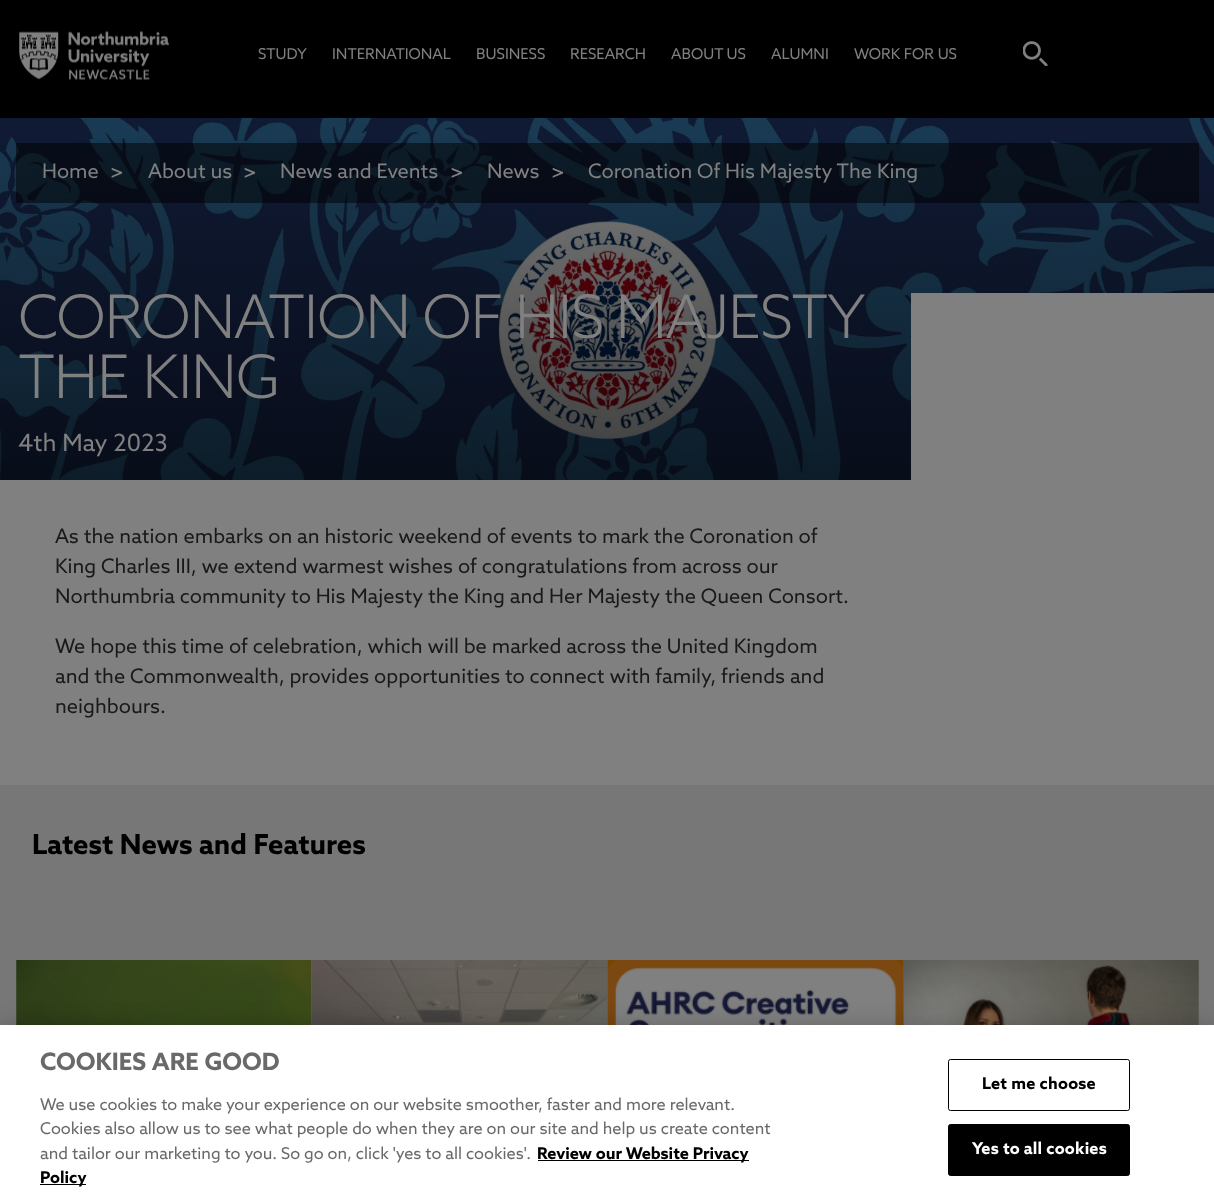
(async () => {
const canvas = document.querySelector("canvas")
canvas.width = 1214
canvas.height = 1203
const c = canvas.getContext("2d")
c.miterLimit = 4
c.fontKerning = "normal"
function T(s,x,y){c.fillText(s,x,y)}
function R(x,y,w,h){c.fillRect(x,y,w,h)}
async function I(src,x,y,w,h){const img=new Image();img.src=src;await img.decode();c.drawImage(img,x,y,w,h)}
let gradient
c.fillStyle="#777"
R(0,0,1214,1203)
c.fillStyle="#000"
R(0,0,1214,118)
await I("1.png",19,31,150,49)
c.font="15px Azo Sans"
c.fillStyle="#808080"
T("STUDY",258,59)
T("INTERNATIONAL",332,59)
T("BUSINESS",476,59)
T("RESEARCH",570,59)
T("ABOUT US",671,59)
T("ALUMNI",771,59)
T("WORK FOR US",854,59)
await I("2.png",1023,41,25,25)
await I("3.png",0,118,1214,362)
gradient = c.createLinearGradient(608,117,608,543)
gradient.addColorStop(0,"#00000000")
gradient.addColorStop(1,"#00000099")
c.fillStyle = gradient
R(0,138,1214,342)
c.fillStyle="#00000080"
R(16,143,1183,60)
c.font="20px Azo Sans"
c.fillStyle="#808080"
T("Home",42,178)
T(">",110,178)
T("About us",148,178)
T(">",243,178)
T("News and Events",280,178)
T(">",450,178)
T("News",487,178)
T(">",551,178)
T("Coronation Of His Majesty The King",588,178)
c.letterSpacing="-1.25px"
c.wordSpacing="-1px"
c.font="300 60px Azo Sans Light"
T("CORONATION OF HIS MAJESTY",18,338)
c.wordSpacing="0px"
T("THE KING",18,398)
c.letterSpacing="0px"
c.font="23.75px Azo Sans"
T("4th May 2023",18,451)
R(0,480,911,305)
c.font="20px Azo Sans"
c.fillStyle="#191919"
T("As the nation embarks on an historic weekend of events to mark the Coronation of",55,543)
T("King Charles III, we extend warmest wishes of congratulations from across our",55,573)
T("Northumbria community to His Majesty the King and Her Majesty the Queen Consort.",55,603)
T("We hope this time of celebration, which will be marked across the United Kingdom",55,653)
T("and the Commonwealth, provides opportunities to connect with family, friends and",55,683)
T("neighbours.",55,713)
c.fillStyle="#808080"
R(911,293,303,492)
c.font="bold 27.5px Azo Sans"
c.fillStyle="#000"
T("Latest News and Features",32,854)
await I("4.png",16,960,296,65)
await I("5.png",311,960,297,65)
await I("6.png",607,960,297,65)
await I("7.png",903,960,296,65)
c.fillStyle="#00000033"
c.filter="blur(11px)"
c.beginPath()
c.rect(0,1025,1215,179)
c.fill()
c.filter="none"
c.fillStyle="#fff"
R(0,1025,1214,178)
c.font="bold 24px Azo Sans"
c.fillStyle="#696969"
T("COOKIES ARE GOOD",40,1070)
c.font="16.25px Azo Sans"
T("We use cookies to make your experience on our website smoother, faster and more relevant.",40,1110)
T("Cookies also allow us to see what people do when they are on our site and help us create content",40,1134)
T("and tailor our marketing to you. So go on, click 'yes to all cookies'.",40,1159)
c.fillStyle="#000"
R(538,1160,211,1)
c.font="bold 16.25px Azo Sans"
T("Review our Website Privacy",537,1159)
R(40,1184,46,1)
T("Policy",40,1183)
c.beginPath()
c.roundRect(948.5,1059.5,181,51,2)
c.strokeStyle="#000"
c.stroke()
c.letterSpacing="0.2px"
T("Let me choose",982,1089)
c.beginPath()
c.roundRect(948.5,1124.5,181,51,2)
c.fill()
c.stroke()
c.fillStyle="#fff"
T("Yes to all cookies",972,1154)
})()
